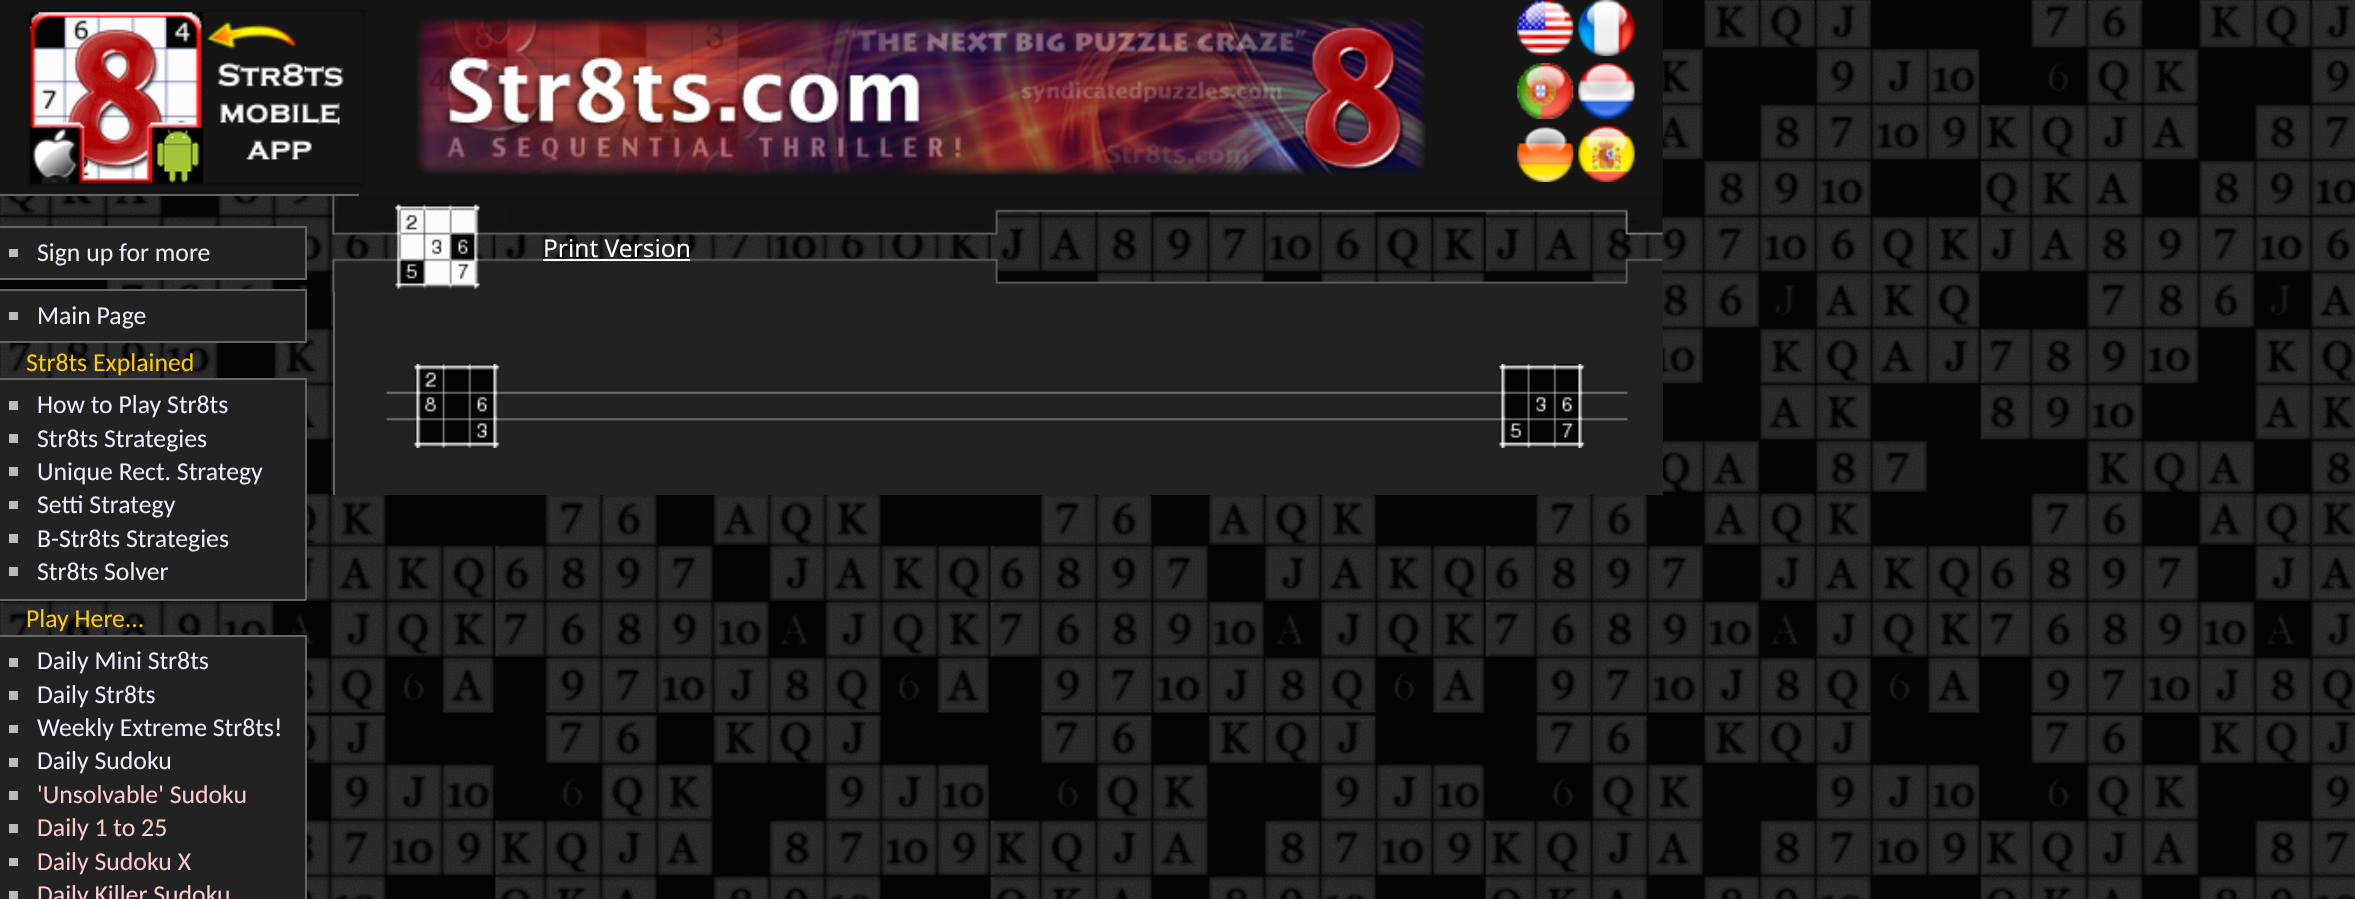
(async () => {
const canvas = document.querySelector("canvas")
canvas.width = 2355
canvas.height = 899
const c = canvas.getContext("2d")
c.miterLimit = 4
c.fontKerning = "normal"
function T(s,x,y){c.fillText(s,x,y)}
function R(x,y,w,h){c.fillRect(x,y,w,h)}
async function I(src,x,y,w,h){const img=new Image();img.src=src;await img.decode();c.drawImage(img,x,y,w,h)}
c.fillStyle="#fff"
R(0,0,2355,899)
await I("1.png",0,0,2355,899)
c.fillStyle="#151515"
R(0,0,1663,196)
c.fillStyle="#666"
R(0,194,359,2)
c.strokeStyle="#111"
c.lineWidth=4
c.strokeRect(28,11,336,174)
await I("2.png",29,12,315,172)
await I("3.png",416,17,1010,158)
await I("4.png",1517,0,57,56)
await I("5.png",1578,0,57,56)
await I("6.png",1517,63,57,56)
await I("7.png",1578,63,57,56)
await I("8.png",1517,126,57,56)
await I("9.png",1578,126,57,56)
c.fillStyle="#222"
R(0,228,305,50)
c.fillStyle="#666"
R(0,226,306,2)
R(305,226,2,54)
R(0,278,306,2)
c.fillStyle="#bbb"
R(9,249,9,8)
c.font="25.75px Carlito"
c.fillStyle="#eef"
T("Sign up for more",37,261)
c.fillStyle="#222"
R(0,291,305,50)
c.fillStyle="#666"
R(0,289,306,2)
R(305,289,2,54)
R(0,341,306,2)
c.fillStyle="#bbb"
R(9,312,9,8)
c.fillStyle="#eef"
T("Main Page",37,324)
c.fillStyle="#fc0"
T("Str8ts Explained",26,371)
c.fillStyle="#222"
R(0,380,305,219)
c.fillStyle="#666"
R(0,378,306,2)
R(305,378,2,222)
R(0,599,306,2)
c.fillStyle="#bbb"
R(9,401,9,9)
c.fillStyle="#eef"
T("How to Play Str8ts",37,413)
c.fillStyle="#bbb"
R(9,434,9,9)
c.fillStyle="#eef"
T("Str8ts Strategies",37,447)
c.fillStyle="#bbb"
R(9,467,9,9)
c.fillStyle="#eef"
T("Unique Rect. Strategy",37,480)
c.fillStyle="#bbb"
R(9,501,9,8)
c.fillStyle="#eef"
T("Setti Strategy",37,513)
c.fillStyle="#bbb"
R(9,534,9,9)
c.fillStyle="#eef"
T("B-Str8ts Strategies",37,547)
c.fillStyle="#bbb"
R(9,567,9,9)
c.fillStyle="#eef"
T("Str8ts Solver",37,580)
c.fillStyle="#fc0"
T("Play Here...",26,627)
c.fillStyle="#222"
R(0,637,305,262)
c.fillStyle="#666"
R(0,635,306,2)
R(305,635,2,264)
c.fillStyle="#bbb"
R(9,658,9,9)
c.fillStyle="#eef"
T("Daily Mini Str8ts",37,669)
c.fillStyle="#bbb"
R(9,691,9,9)
c.fillStyle="#eef"
T("Daily Str8ts",37,703)
c.fillStyle="#bbb"
R(9,725,9,8)
c.fillStyle="#eef"
T("Weekly Extreme Str8ts!",37,736)
c.fillStyle="#bbb"
R(9,758,9,9)
c.fillStyle="#eef"
T("Daily Sudoku",37,769)
c.fillStyle="#bbb"
R(9,791,9,9)
c.fillStyle="#fcc"
T("'Unsolvable' Sudoku",37,803)
c.fillStyle="#bbb"
R(9,824,9,9)
c.fillStyle="#fcc"
T("Daily 1 to 25",37,836)
c.fillStyle="#bbb"
R(9,858,9,8)
c.fillStyle="#fcc"
T("Daily Sudoku X",37,870)
c.fillStyle="#bbb"
R(9,891,9,8)
c.fillStyle="#fcc"
T("Daily Killer Sudoku",37,903)
await I("10.png",332,196,1331,97)
c.font="24.5px Noto Sans"
c.fillStyle="#fff"
T("Print Version",543,257)
R(543,259,147,2)
c.fillStyle="#222"
R(335,292,1328,203)
c.fillStyle="#666"
R(333,292,2,203)
await I("11.png",386,364,1242,84)
})()
